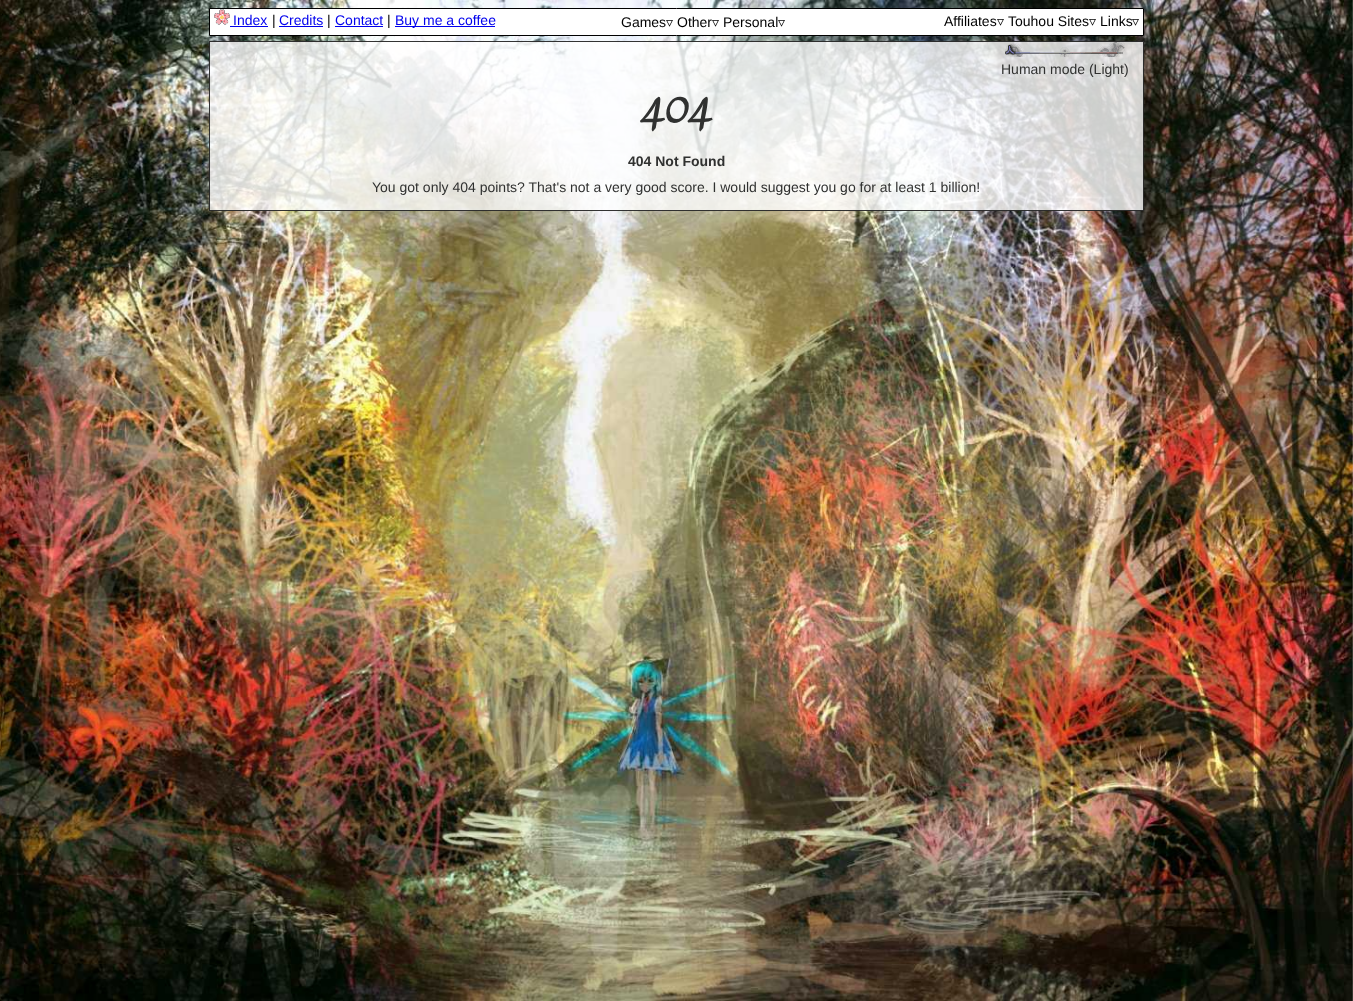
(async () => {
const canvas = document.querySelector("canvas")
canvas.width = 1353
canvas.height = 1001
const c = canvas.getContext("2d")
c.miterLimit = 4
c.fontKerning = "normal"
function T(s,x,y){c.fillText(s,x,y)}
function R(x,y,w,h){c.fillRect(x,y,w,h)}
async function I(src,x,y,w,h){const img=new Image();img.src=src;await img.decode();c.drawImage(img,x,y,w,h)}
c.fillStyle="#fff"
R(0,0,1353,1001)
await I("1.png",0,0,1353,1001)
c.beginPath()
c.rect(209.5,8.5,934,27)
c.fill()
c.strokeStyle="#000"
c.stroke()
await I("2.png",214,9,16,16)
c.font="14px Liberation Sans"
c.fillStyle="#00e"
T("Index",233,25)
R(230,26,38,1)
c.fillStyle="#000"
T("|",272,25)
c.fillStyle="#00e"
T("Credits",279,25)
R(279,26,44,1)
c.fillStyle="#000"
T("|",327,25)
c.fillStyle="#00e"
T("Contact",335,25)
R(335,26,48,1)
c.fillStyle="#000"
T("|",387,25)
c.fillStyle="#00e"
R(395,26,100,1)
T("Buy me a coffee",395,25)
c.fillStyle="#000"
T("Games",621,27)
c.font="14px DejaVu Sans"
T("▿",666,27)
c.font="14px Liberation Sans"
T("Other",677,27)
c.font="14px DejaVu Sans"
T("▿",712,27)
c.font="14px Liberation Sans"
T("Personal",723,27)
c.font="14px DejaVu Sans"
T("▿",778,27)
c.font="14px Liberation Sans"
T("Affiliates",944,26)
c.font="14px DejaVu Sans"
T("▿",997,26)
c.font="14px Liberation Sans"
T("Touhou Sites",1008,26)
c.font="14px DejaVu Sans"
T("▿",1089,26)
c.font="14px Liberation Sans"
T("Links",1100,26)
c.font="14px DejaVu Sans"
T("▿",1132,26)
c.fillStyle="#ffffffcc"
R(209,41,935,170)
c.strokeStyle="#000000cc"
c.strokeRect(209.5,41.5,934,169)
await I("3.png",1005,42,120,15)
c.font="14px Liberation Sans"
c.fillStyle="#303130"
T("Human mode (Light)",1001,74)
c.font="bold 48px Felipa"
T("404",642,123)
c.font="bold 14px Liberation Sans"
T("404 Not Found",628,166)
c.font="14px Liberation Sans"
T("You got only 404 points? That's not a very good score. I would suggest you go for at least 1 billion!",372,192)
})()
